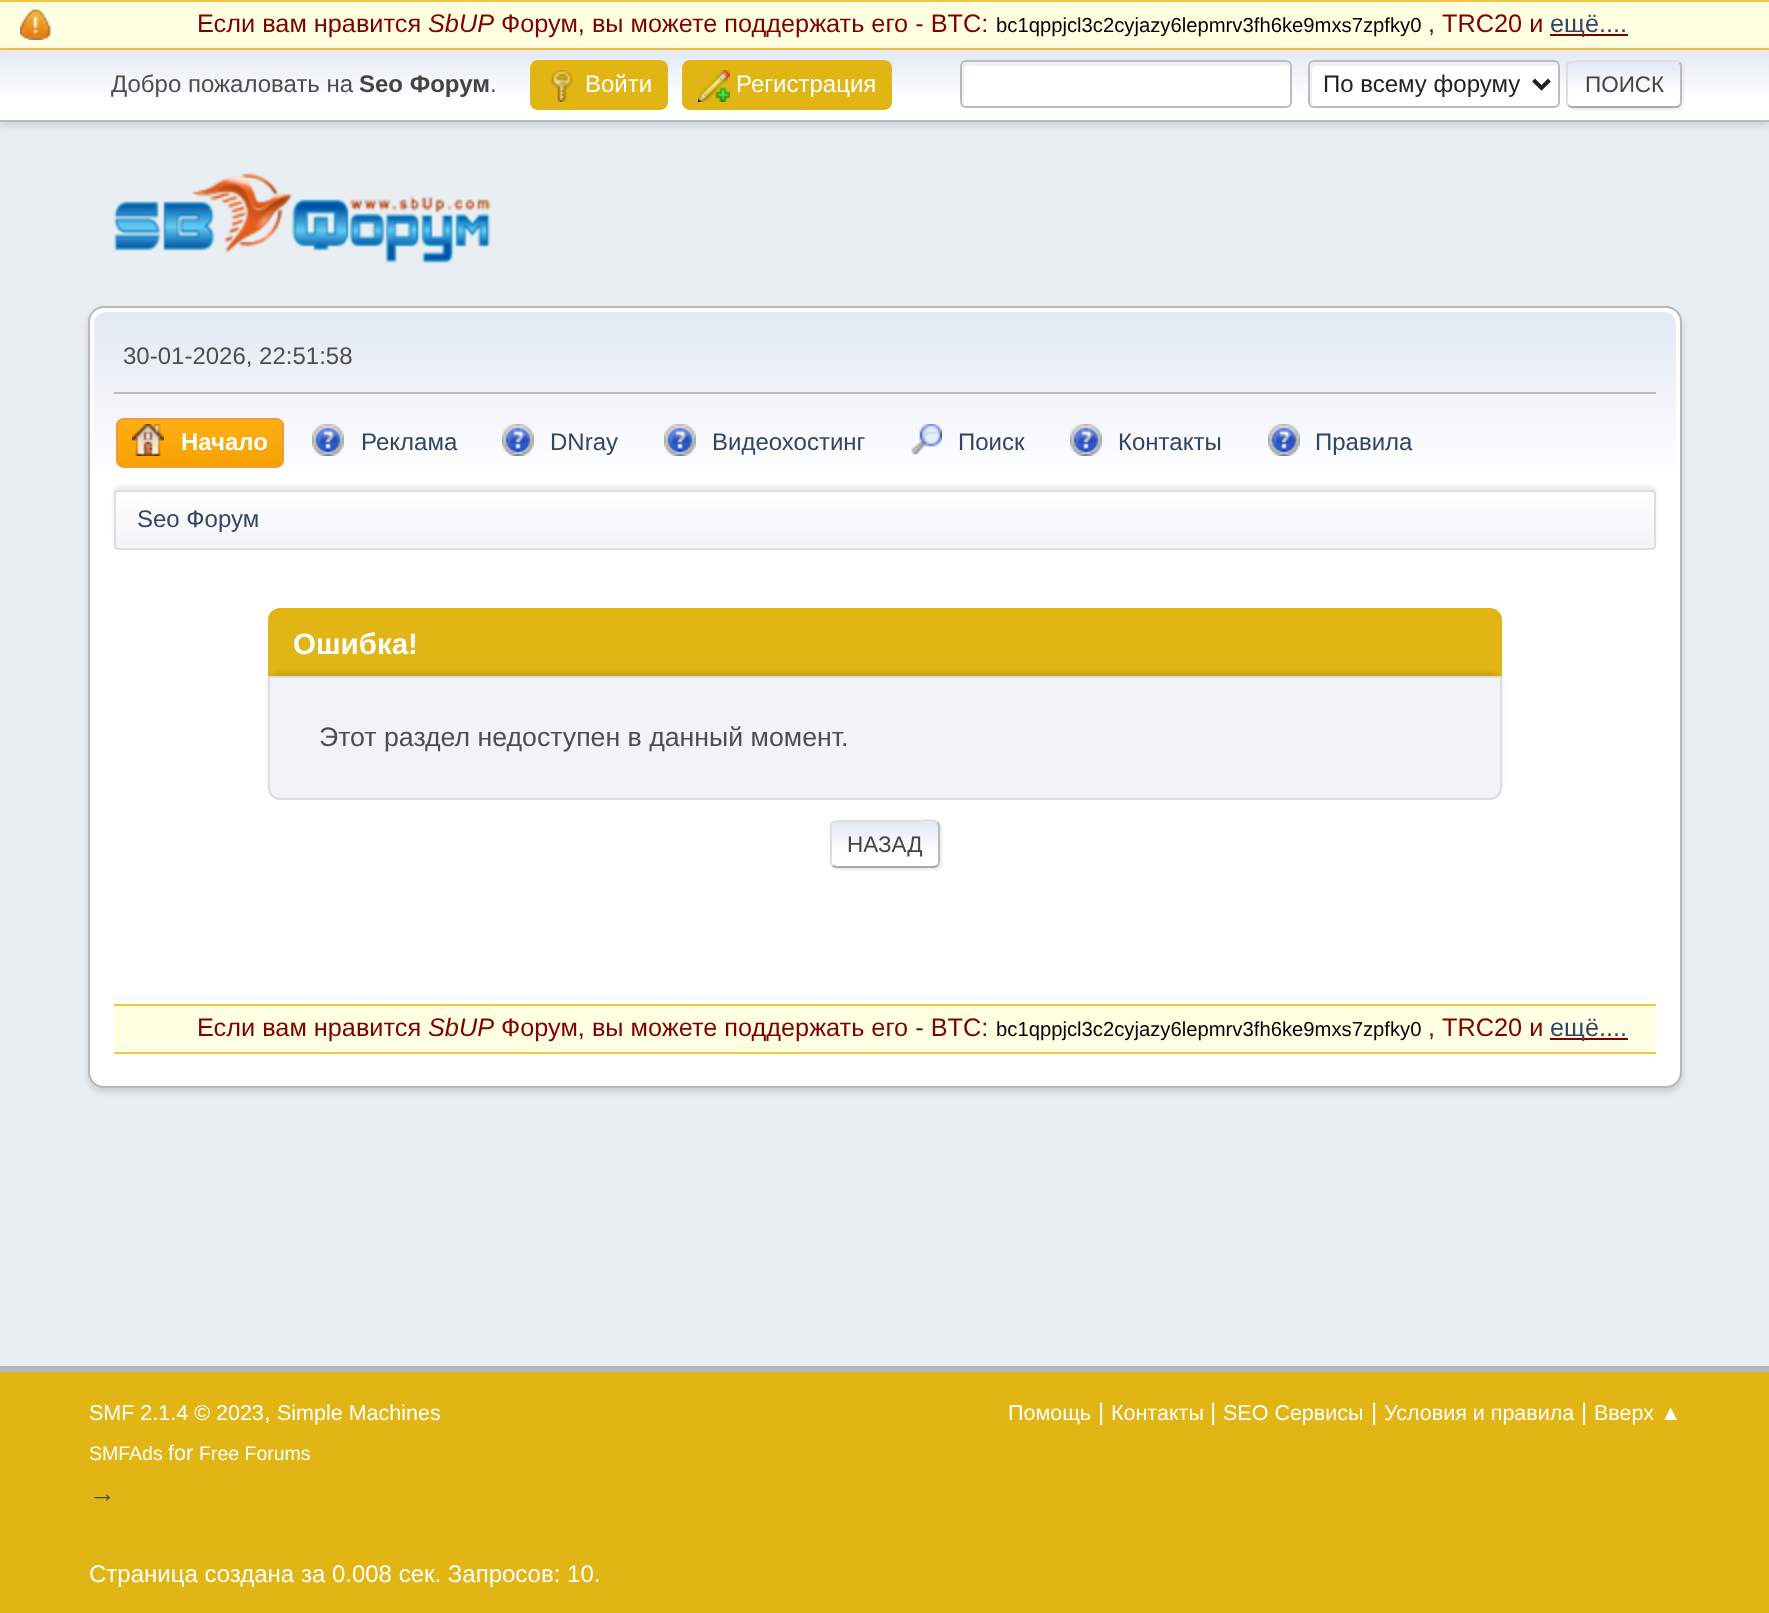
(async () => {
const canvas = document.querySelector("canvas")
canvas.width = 1769
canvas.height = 1613
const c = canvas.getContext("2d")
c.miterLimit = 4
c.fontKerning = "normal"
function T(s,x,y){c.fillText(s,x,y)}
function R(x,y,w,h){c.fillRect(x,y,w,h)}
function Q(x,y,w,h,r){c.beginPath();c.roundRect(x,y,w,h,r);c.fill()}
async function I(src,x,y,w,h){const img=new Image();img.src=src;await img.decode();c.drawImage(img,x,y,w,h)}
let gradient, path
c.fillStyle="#e9eef2"
R(0,0,1769,1613)
c.fillStyle="#ffffe1"
R(0,2,1769,46)
c.fillStyle="#f7c640"
R(0,0,1769,2)
R(0,48,1769,2)
c.fillStyle="#00000029"
c.filter="blur(4px)"
c.beginPath()
c.rect(0,52,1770,72)
c.fill()
c.filter="none"
await I("1.png",20,9,31,31)
c.font="25.3px Liberation Sans"
c.fillStyle="#800000"
T("Если вам нравится",197,32)
c.font="italic 25.3px Liberation Sans"
T("SbUP",428,32)
c.font="25.3px Liberation Sans"
T("Форум, вы можете поддержать его - BTC:",501,32)
c.font="20.25px Liberation Sans"
c.fillStyle="#000"
T("bc1qppjcl3c2cyjazy6lepmrv3fh6ke9mxs7zpfky0",996,32)
c.font="25.3px Liberation Sans"
c.fillStyle="#800000"
T(",",1428,32)
T("TRC20 и",1442,32)
R(1550,34,78,2)
c.fillStyle="#346"
T("ещё....",1550,32)
gradient = c.createLinearGradient(885,50,885,120)
gradient.addColorStop(0,"#e2e9f3")
gradient.addColorStop(.7,"#fff")
c.fillStyle = gradient
R(0,50,1769,70)
c.fillStyle="#bbb"
R(0,120,1769,2)
c.font="24px Liberation Sans"
c.fillStyle="#4d4d4d"
T("Добро пожаловать на",111,92)
c.font="bold 24px Liberation Sans"
c.fillStyle="#444"
T("Seo Форум",359,92)
c.font="24px Liberation Sans"
c.fillStyle="#4d4d4d"
T(".",490,92)
c.fillStyle="#e1b514"
c.beginPath()
c.roundRect(531,61,136,48,7)
c.fill()
c.strokeStyle="#e1b514"
c.lineWidth=2
c.stroke()
await I("2.png",551,70,22,32)
c.fillStyle="#fff"
T("Войти",585,92)
c.fillStyle="#e1b514"
c.beginPath()
c.roundRect(683,61,208,48,7)
c.fill()
c.stroke()
await I("3.png",698,70,32,32)
c.fillStyle="#fff"
T("Регистрация",736,92)
Q(960,60,332,48,6)
c.fillStyle="#ecf1f8"
path = new Path2D("M968 66h320l2 1v-1c0-2-2-4-4-4h-320c-2 0-4 2-4 4v36c0 1 1 3 2 3v-35c0-2 2-4 4-4z")
c.fill(path)
c.beginPath()
c.roundRect(961,61,330,46,5)
c.strokeStyle="#bbb"
c.stroke()
c.fillStyle="#fff"
Q(1308,60,252,48,6)
c.fillStyle="#ecf1f8"
path = new Path2D("M1316 66h240l2 1v-1c0-2-2-4-4-4h-240c-2 0-4 2-4 4v36c0 1 1 3 2 3v-35c0-2 2-4 4-4z")
c.fill(path)
c.beginPath()
c.roundRect(1309,61,250,46,5)
c.stroke()
path = new Path2D("M1533.5 80l8 8l8-8")
c.strokeStyle="#222"
c.lineWidth=4
c.stroke(path)
c.fillStyle="#222"
T("По всему форуму",1323,92)
c.fillStyle="#dddddd91"
c.filter="blur(1px)"
c.beginPath()
c.roundRect(1568,62,116,48,6)
c.fill()
c.filter="none"
c.save()
c.beginPath()
c.roundRect(1566,60,116,48,6)
c.clip()
gradient = c.createLinearGradient(1624,18,1624,62)
gradient.addColorStop(0,"#e2e9f3")
gradient.addColorStop(.7,"#fff")
c.fillStyle = gradient
R(1566,60,116,2)
gradient = c.createLinearGradient(1624,62,1624,106)
gradient.addColorStop(0,"#e2e9f3")
gradient.addColorStop(.7,"#fff")
c.fillStyle = gradient
R(1566,62,116,44)
c.restore()
path = new Path2D("M1679.5 62.5c1 1 1.5 2 1.5 3.5v36c0 1.5-.5 2.5-1.5 3.5")
c.strokeStyle="#bbb"
c.lineWidth=2
c.stroke(path)
path = new Path2D("M1679.5 105.5c-1 1-2 1.5-3.5 1.5h-104c-1.5 0-2.5-.5-3.5-1.5")
c.strokeStyle="#aaa"
c.stroke(path)
path = new Path2D("M1568.5 105.5c-2.5-2.5-1.5-7-1.5-9.5v-12c0-26-4.5-23 22.5-23h86.5c1.5 0 2.5 .5 3.5 1.5")
c.strokeStyle="#ddd"
c.stroke(path)
c.font="22.5px Liberation Sans"
c.fillStyle="#444"
T("ПОИСК",1585,92)
await I("4.png",113,173,378,91)
c.fillStyle="#00000024"
c.filter="blur(3px)"
c.beginPath()
c.roundRect(88,310,1594,782,16)
c.fill()
c.filter="none"
c.fillStyle="#fff"
c.beginPath()
c.roundRect(89,307,1592,780,15)
c.fill()
c.strokeStyle="#b8b8b8"
c.stroke()
gradient = c.createLinearGradient(885,312,885,554)
gradient.addColorStop(0,"#e2e9f3")
gradient.addColorStop(.7,"#fff")
c.fillStyle = gradient
c.beginPath()
c.roundRect(94,312,1582,242,[12,12,0,0])
c.fill()
c.fillStyle="#bbb"
R(114,392,1542,2)
c.font="24px Liberation Sans"
c.fillStyle="#4d4d4d"
T("30-01-2026, 22:51:58",123,364)
c.save()
c.beginPath()
c.roundRect(116,418,168,50,8)
c.clip()
gradient = c.createLinearGradient(200,420,200,466)
gradient.addColorStop(0,"#ffae14")
gradient.addColorStop(1,"#f5a100")
c.fillStyle = gradient
R(116,420,168,46)
c.restore()
c.beginPath()
c.roundRect(117,419,166,48,7)
c.strokeStyle="#f49a3a"
c.stroke()
await I("5.png",132,424,32,32)
c.font="bold 24px Liberation Sans"
c.fillStyle="#fff"
T("Начало",181,450)
await I("6.png",312,424,32,32)
c.font="24px Liberation Sans"
c.fillStyle="#346"
T("Реклама",361,450)
await I("6.png",502,424,32,32)
T("DNray",550,450)
await I("6.png",664,424,32,32)
T("Видеохостинг",712,450)
await I("7.png",911,424,31,31)
T("Поиск",958,450)
await I("6.png",1070,424,32,32)
T("Контакты",1118,450)
await I("6.png",1268,424,32,32)
T("Правила",1315,450)
c.fillStyle="#00000014"
c.filter="blur(2px)"
c.beginPath()
c.roundRect(114,486,1542,60,4)
c.fill()
c.filter="none"
c.save()
c.beginPath()
c.roundRect(114,490,1542,60,4)
c.clip()
gradient = c.createLinearGradient(885,492,885,548)
gradient.addColorStop(0,"#fff")
gradient.addColorStop(.95,"#f1f3f5")
c.fillStyle = gradient
R(114,492,1542,56)
c.restore()
c.beginPath()
c.roundRect(115,491,1540,58,3)
c.strokeStyle="#ddd"
c.stroke()
c.fillStyle="#346"
T("Seo Форум",137,527)
c.fillStyle="#e1b514"
c.beginPath()
c.roundRect(268,608,1234,70,[12,12,0,0])
c.fill()
c.font="bold 29.5px Liberation Sans"
c.fillStyle="#fff"
T("Ошибка!",293,654)
c.fillStyle="#0000001a"
c.filter="blur(2px)"
c.beginPath()
c.roundRect(268,672,1234,124,12)
c.fill()
c.filter="none"
c.fillStyle="#f0f4f7"
c.beginPath()
c.roundRect(269,677,1232,122,[0,0,11,11])
c.fill()
c.stroke()
c.font="26.7px Liberation Sans"
c.fillStyle="#4d4d4d"
T("Этот раздел недоступен в данный момент.",319,746)
c.fillStyle="#dddddd91"
c.filter="blur(1px)"
c.beginPath()
c.roundRect(832,822,110,48,6)
c.fill()
c.filter="none"
c.fillStyle="#fff"
Q(830,820,110,48,6)
c.save()
c.beginPath()
c.roundRect(830,820,110,48,6)
c.clip()
gradient = c.createLinearGradient(885,822,885,866)
gradient.addColorStop(0,"#e2e9f3")
gradient.addColorStop(.7,"#fff")
c.fillStyle = gradient
R(830,822,110,44)
gradient = c.createLinearGradient(885,866,885,910)
gradient.addColorStop(0,"#e2e9f3")
gradient.addColorStop(.7,"#fff")
c.fillStyle = gradient
R(830,866,110,2)
c.restore()
path = new Path2D("M937.5 822.5c1 1 1.5 2 1.5 3.5v36c0 1.5-.5 2.5-1.5 3.5")
c.strokeStyle="#bbb"
c.stroke(path)
path = new Path2D("M937.5 865.5l-3 1.5h-99l-3-1.5")
c.strokeStyle="#aaa"
c.stroke(path)
path = new Path2D("M832.5 865.5c-2.5-2.5-1.5-7-1.5-9.5v-12c0-25.5-4.5-23 21.5-23h65c1 0 16-2.5 20 1.5")
c.strokeStyle="#ddd"
c.stroke(path)
c.font="22.5px Liberation Sans"
c.fillStyle="#444"
T("НАЗАД",847,852)
c.fillStyle="#ffffe1"
R(114,1006,1542,46)
c.fillStyle="#f7c640"
R(114,1004,1542,2)
R(114,1052,1542,2)
await I("8.png",20,9,31,31)
c.font="25.3px Liberation Sans"
c.fillStyle="#800000"
T("Если вам нравится",197,1036)
c.font="italic 25.3px Liberation Sans"
T("SbUP",428,1036)
c.font="25.3px Liberation Sans"
T("Форум, вы можете поддержать его - BTC:",501,1036)
c.font="20.25px Liberation Sans"
c.fillStyle="#000"
T("bc1qppjcl3c2cyjazy6lepmrv3fh6ke9mxs7zpfky0",996,1036)
c.font="25.3px Liberation Sans"
c.fillStyle="#800000"
T(",",1428,1036)
T("TRC20 и",1442,1036)
R(1550,1038,78,2)
c.fillStyle="#346"
T("ещё....",1550,1036)
c.fillStyle="#e1b514"
R(0,1372,1769,241)
c.fillStyle="#b2b6bd"
R(0,1366,1769,6)
c.font="21.5px Liberation Sans"
c.fillStyle="#fff"
T("SMF 2.1.4 © 2023",89,1420)
c.font="24px Liberation Sans"
T(",",264,1420)
c.font="21.5px Liberation Sans"
T("Simple Machines",277,1420)
c.font="19.5px Liberation Sans"
T("SMFAds",89,1460)
c.font="21.5px Liberation Sans"
T("for",168,1460)
c.font="19.5px Liberation Sans"
T("Free Forums",199,1460)
c.font="21.5px Liberation Sans"
T("Помощь",1008,1420)
c.font="24px Liberation Sans"
T("|",1098,1420)
c.font="21.5px Liberation Sans"
T("Контакты",1111,1420)
c.font="24px Liberation Sans"
T("|",1210,1420)
c.font="21.5px Liberation Sans"
T("SEO Сервисы",1223,1420)
c.font="24px Liberation Sans"
T("|",1371,1420)
c.font="21.5px Liberation Sans"
T("Условия и правила",1384,1420)
c.font="24px Liberation Sans"
T("|",1581,1420)
c.font="21.5px Liberation Sans"
T("Вверх ▲",1594,1420)
c.font="26.7px Liberation Sans"
c.fillStyle="#4d4d4d"
T("→",89,1502)
c.font="24px Liberation Sans"
c.fillStyle="#fff"
T("Страница создана за 0.008 сек. Запросов: 10.",89,1582)
})()
